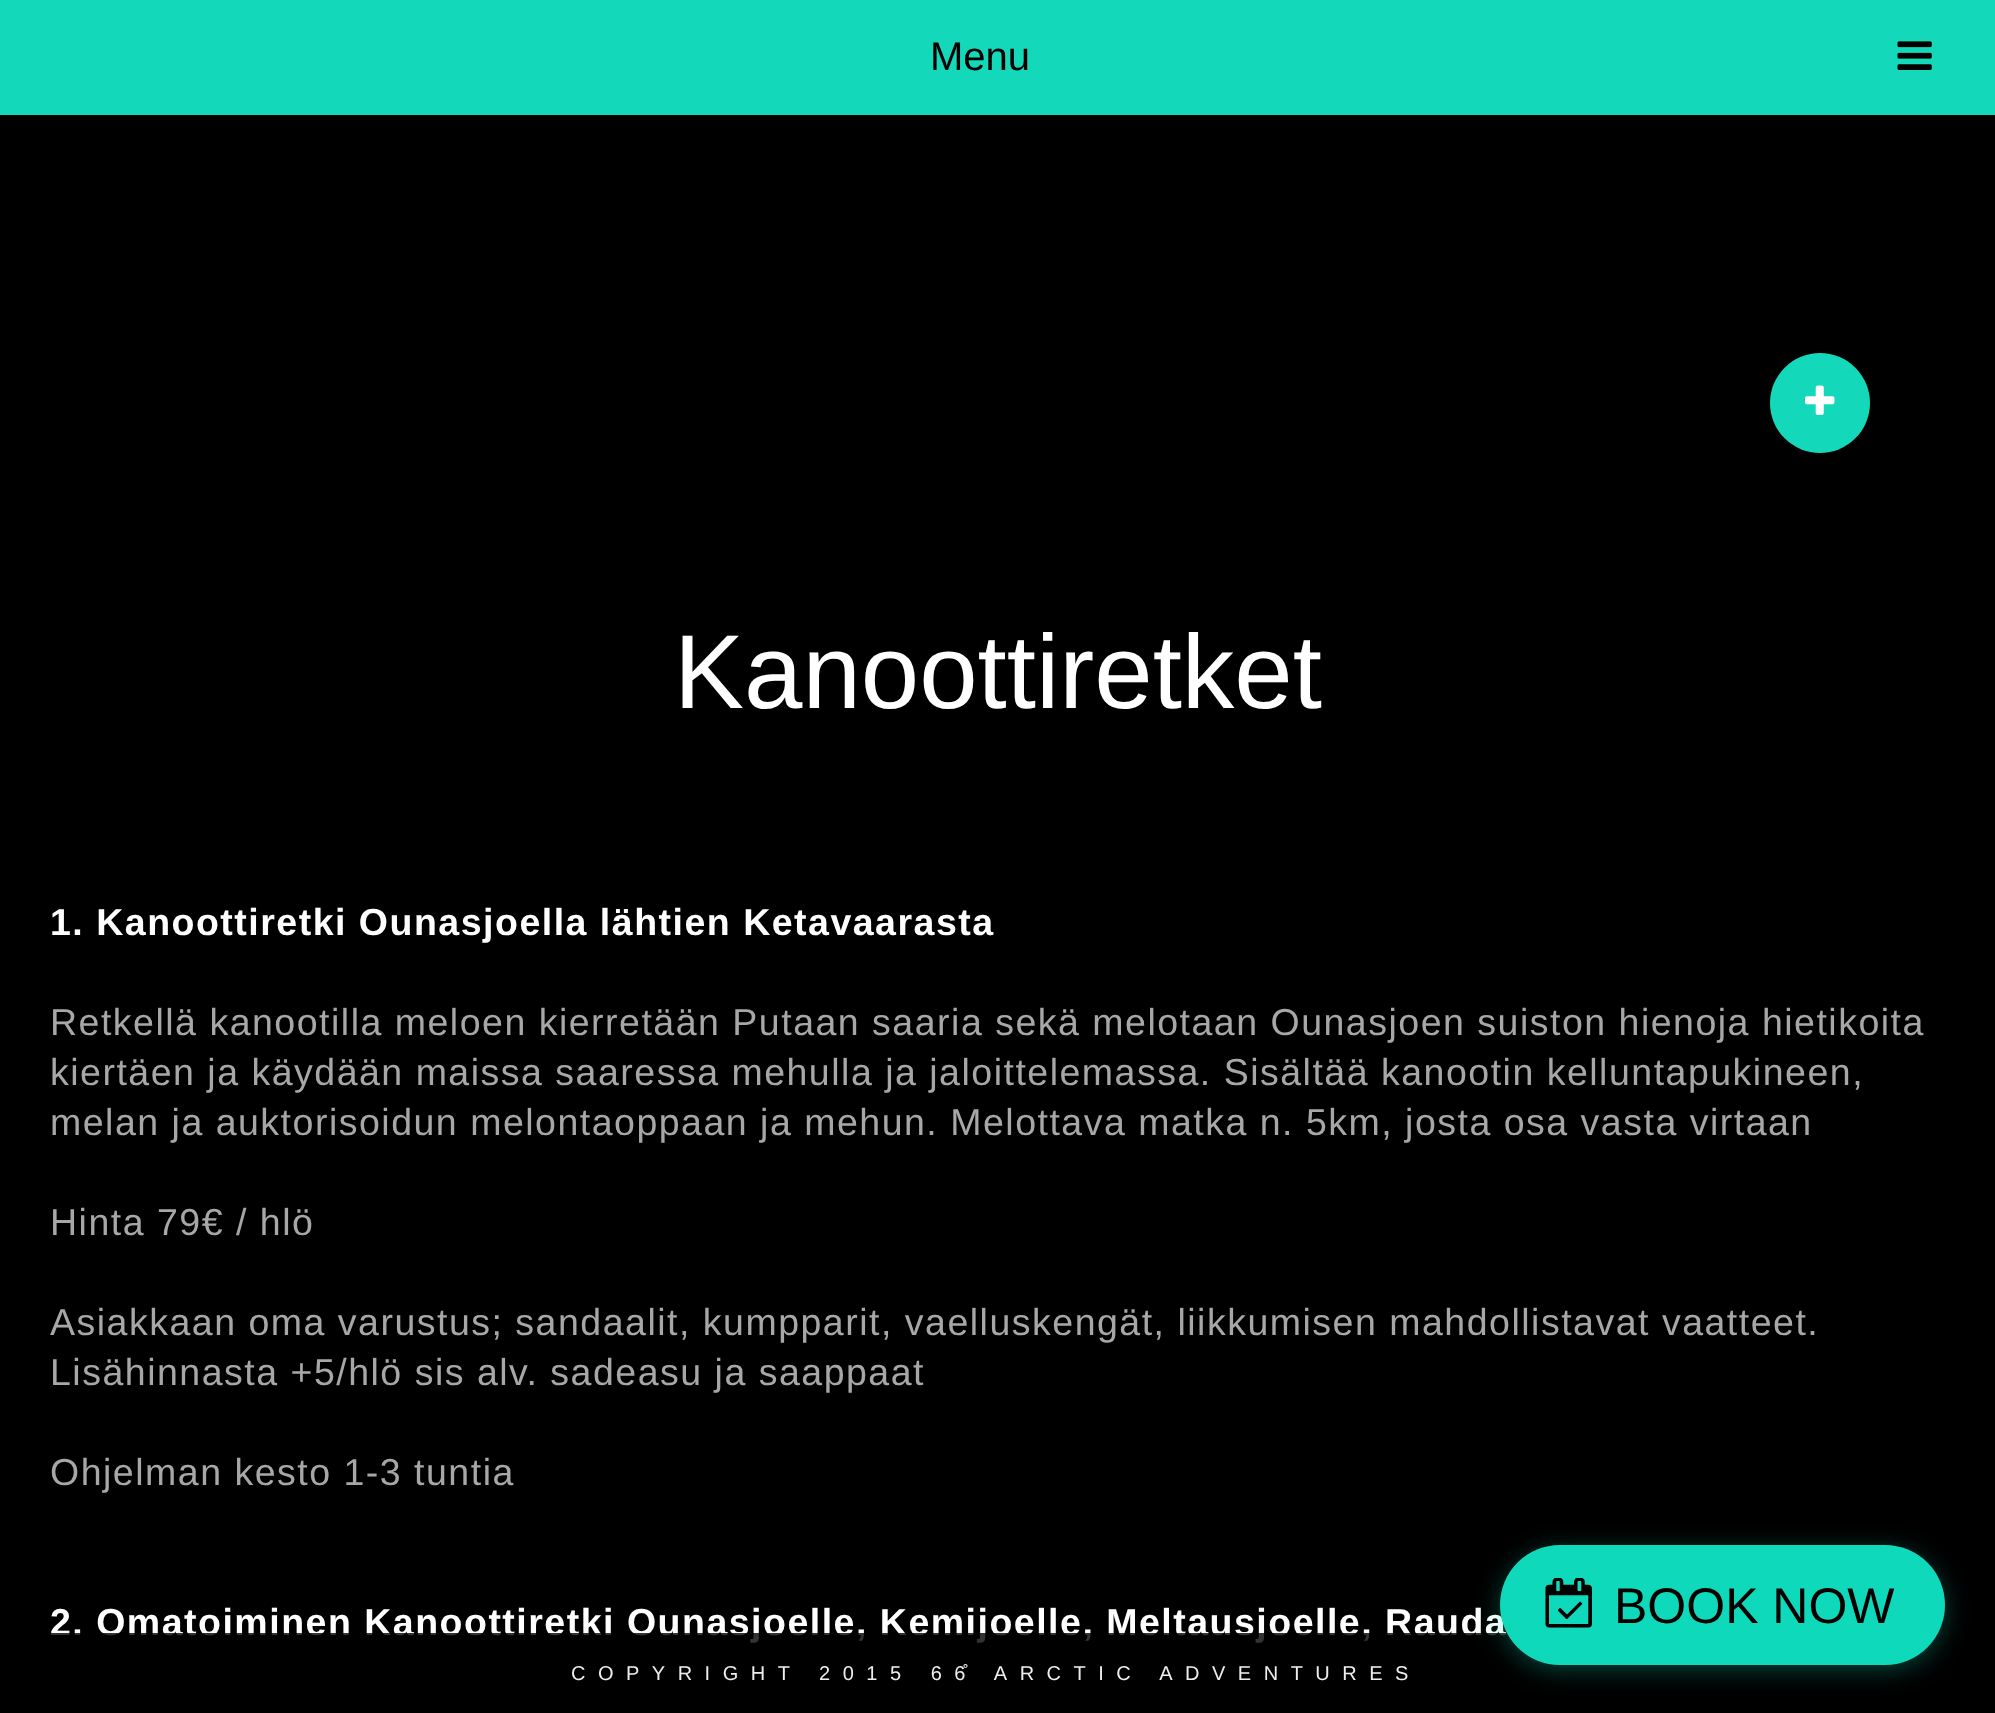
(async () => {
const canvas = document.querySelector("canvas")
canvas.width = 1995
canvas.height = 1713
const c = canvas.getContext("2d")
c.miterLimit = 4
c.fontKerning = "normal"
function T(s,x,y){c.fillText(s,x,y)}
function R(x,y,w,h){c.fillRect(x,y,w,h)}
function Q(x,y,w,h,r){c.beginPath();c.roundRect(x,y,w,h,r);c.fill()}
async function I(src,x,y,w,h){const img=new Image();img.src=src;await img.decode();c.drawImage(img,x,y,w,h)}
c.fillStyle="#000"
R(0,0,1995,1713)
c.fillStyle="#13d9ba"
R(0,0,1995,115)
c.font="40px Liberation Sans"
c.fillStyle="#000"
T("Menu",930,70)
await I("1.png",1897,41,35,29)
c.fillStyle="#13d9ba"
c.beginPath()
c.arc(1820,403,50,0,7)
c.fill()
await I("2.png",1805,385,30,30)
c.font="105px Liberation Sans"
c.fillStyle="#fff"
T("Kanoottiretket",674,708)
c.letterSpacing="1.5px"
c.font="bold 37.5px Liberation Sans"
T("1. Kanoottiretki Ounasjoella lähtien Ketavaarasta",50,935)
c.font="37.5px Liberation Sans"
c.fillStyle="#a7a7a7"
T("Retkellä kanootilla meloen kierretään Putaan saaria sekä melotaan Ounasjoen suiston hienoja hietikoita",50,1035)
T("kiertäen ja käydään maissa saaressa mehulla ja jaloittelemassa. Sisältää kanootin kelluntapukineen,",50,1085)
T("melan ja auktorisoidun melontaoppaan ja mehun. Melottava matka n. 5km, josta osa vasta virtaan",50,1135)
T("Hinta 79€ / hlö",50,1235)
T("Asiakkaan oma varustus; sandaalit, kumpparit, vaelluskengät, liikkumisen mahdollistavat vaatteet.",50,1335)
T("Lisähinnasta +5/hlö sis alv. sadeasu ja saappaat",50,1385)
T("Ohjelman kesto 1-3 tuntia",50,1485)
c.font="bold 37.5px Liberation Sans"
c.fillStyle="#fff"
T("2. Omatoiminen Kanoottiretki Ounasjoelle, Kemijoelle, Meltausjoelle, Rauda",50,1635)
c.fillStyle="#000000cc"
R(51,1633,1455,10)
c.fillStyle="#0ed9ba4d"
c.filter="blur(12.5px)"
c.beginPath()
c.roundRect(1500,1550,445,120,60)
c.fill()
c.filter="none"
c.fillStyle="#0ed9ba"
Q(1500,1545,445,120,60)
await I("3.png",1545,1578,47,50)
c.letterSpacing="0px"
c.font="50px Liberation Sans"
c.fillStyle="#000"
T("BOOK NOW",1614,1623)
c.letterSpacing="12.5px"
c.wordSpacing="-1px"
c.font="20px Liberation Sans"
c.fillStyle="#eee"
T("COPYRIGHT 2015 66̊ ARCTIC ADVENTURES",571,1680)
})()
